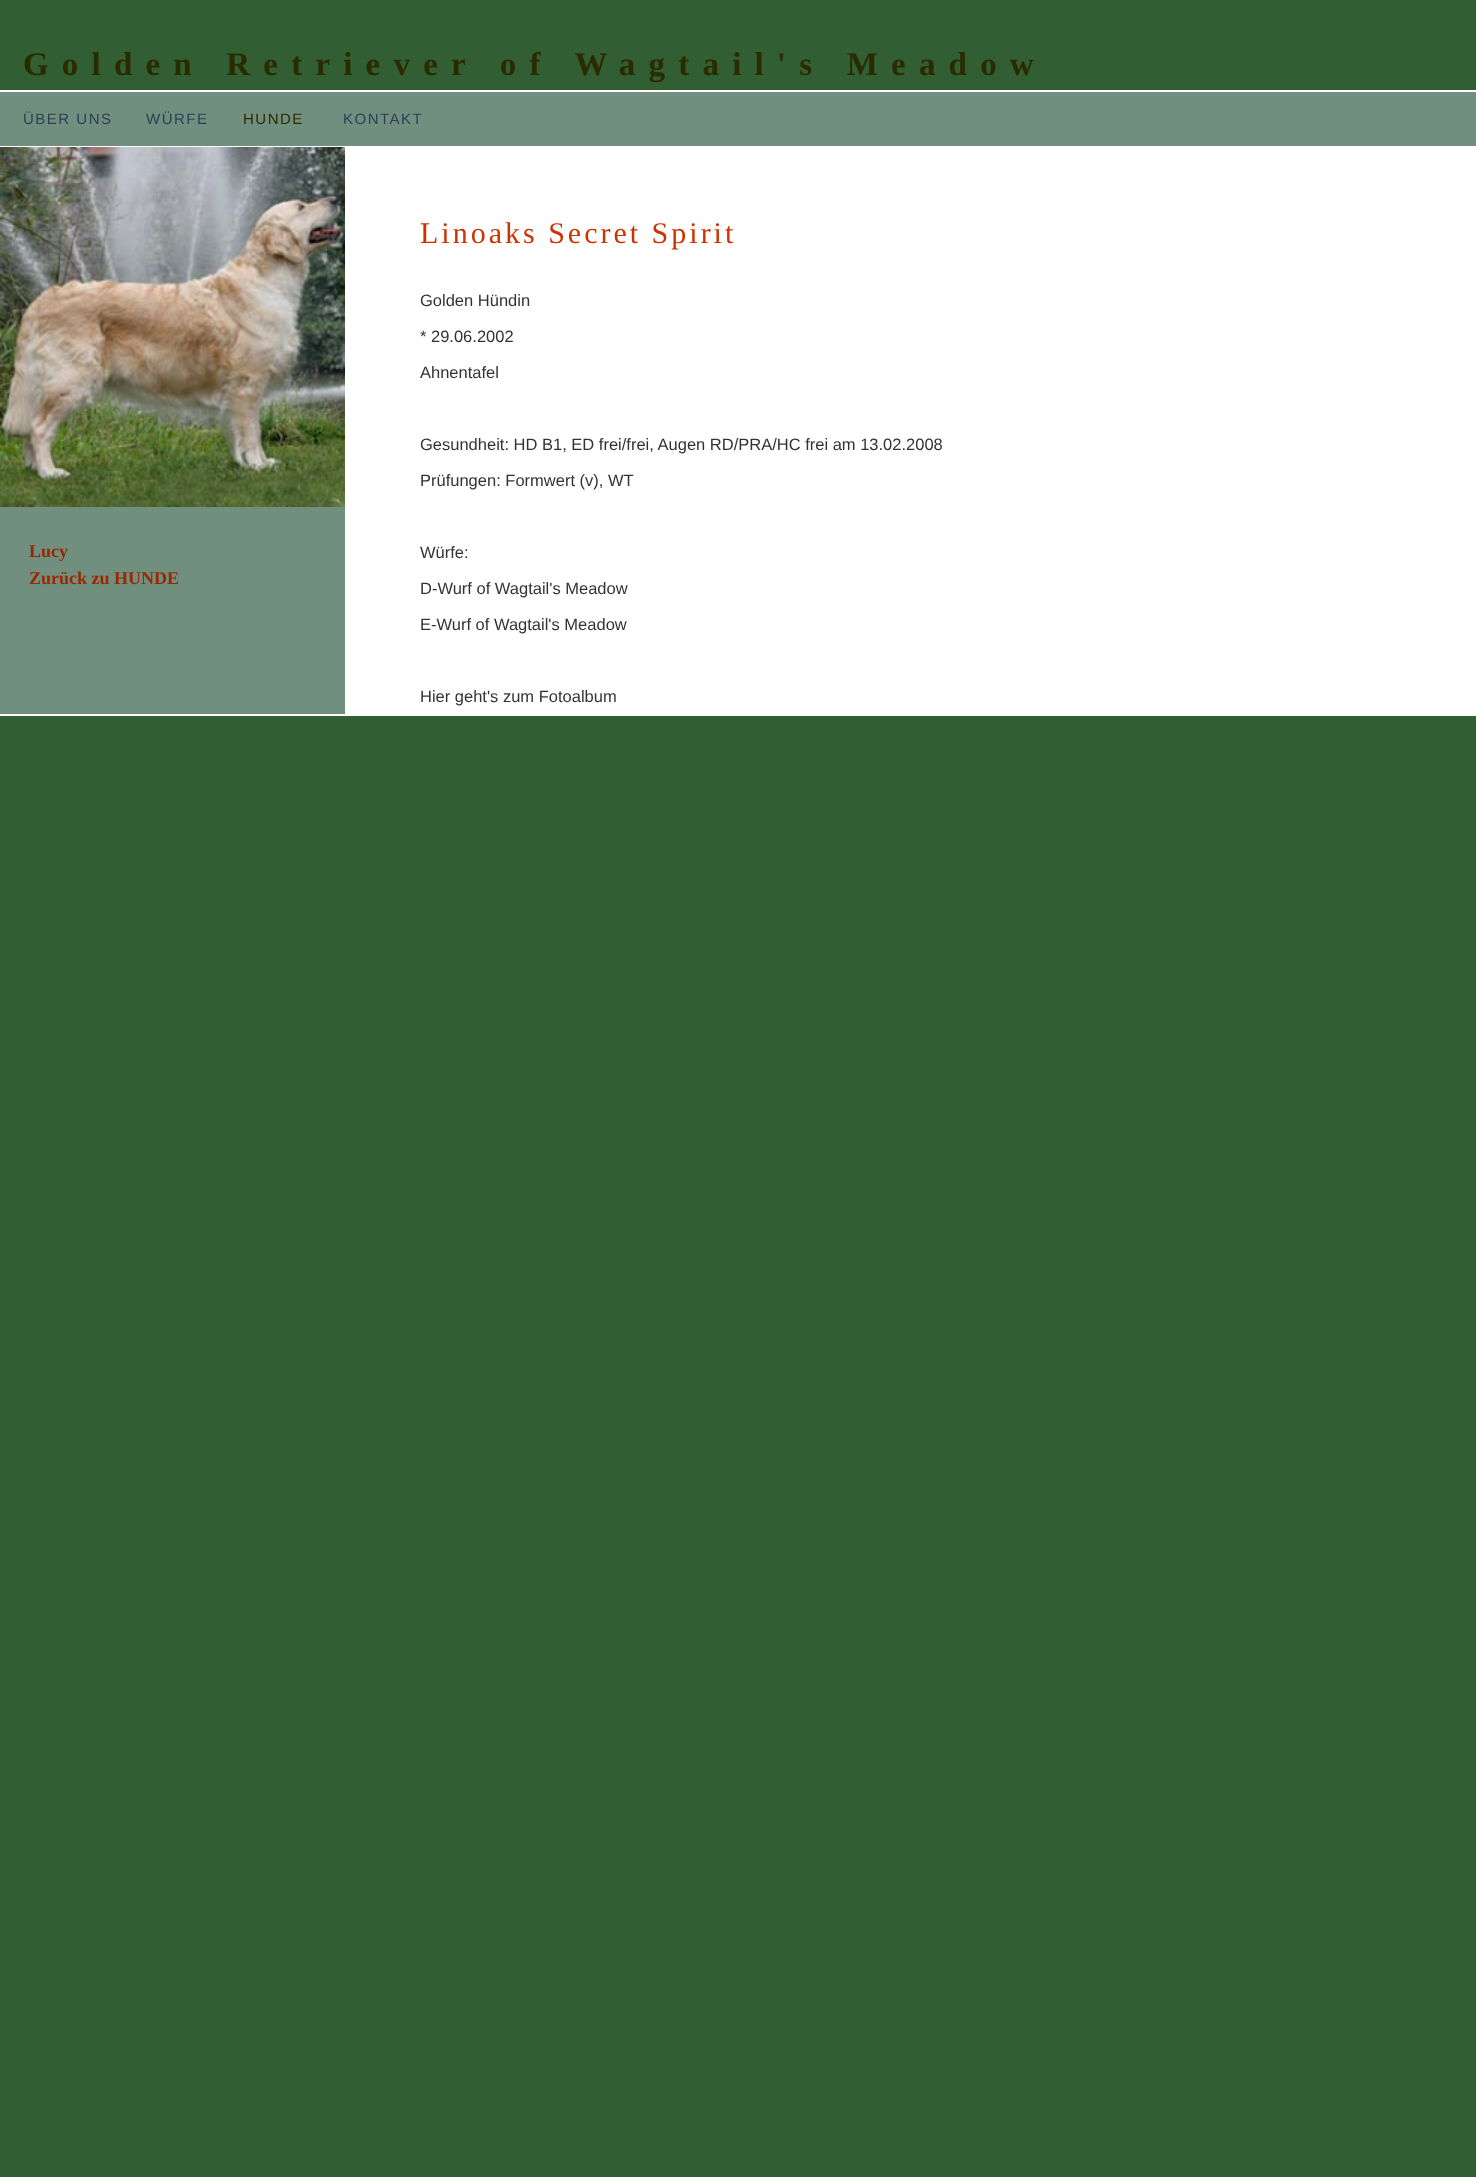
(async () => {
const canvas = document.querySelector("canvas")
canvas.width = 1476
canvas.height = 2177
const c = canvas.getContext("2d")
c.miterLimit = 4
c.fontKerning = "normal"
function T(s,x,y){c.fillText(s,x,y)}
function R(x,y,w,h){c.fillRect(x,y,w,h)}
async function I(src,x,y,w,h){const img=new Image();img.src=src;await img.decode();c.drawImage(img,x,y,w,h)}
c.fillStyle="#315e32"
R(0,0,1476,2177)
c.letterSpacing="13.2px"
c.font="bold 33px Liberation Serif"
c.fillStyle="#2b2b00"
T("Golden Retriever of Wagtail's Meadow",23,75)
c.fillStyle="#fff"
R(0,90,1476,2)
c.fillStyle="#708f7e"
R(0,92,1476,54)
c.letterSpacing="1.5px"
c.font="15px Liberation Sans"
c.fillStyle="#2e4054"
T("ÜBER UNS",23,124)
T("WÜRFE",146,124)
c.fillStyle="#2b2b00"
T("HUNDE",243,124)
c.fillStyle="#2e4054"
T("KONTAKT",343,124)
c.fillStyle="#fff"
R(0,146,1476,1)
R(345,147,1131,567)
c.fillStyle="#708f7e"
R(0,507,345,207)
await I("1.png",0,147,345,360)
c.letterSpacing="0px"
c.font="bold 18px Liberation Serif"
c.fillStyle="#9b2700"
T("Lucy",29,557)
T("Zurück zu HUNDE",29,584)
c.letterSpacing="3px"
c.font="30px Liberation Serif"
c.fillStyle="#c30"
T("Linoaks Secret Spirit",420,243)
c.letterSpacing="0px"
c.font="16.5px Liberation Sans"
c.fillStyle="#333"
T("Golden Hündin",420,306)
T("* 29.06.2002",420,342)
T("Ahnentafel",420,378)
T("Gesundheit: HD B1, ED frei/frei, Augen RD/PRA/HC frei am 13.02.2008",420,450)
T("Prüfungen: Formwert (v), WT",420,486)
T("Würfe:",420,558)
T("D-Wurf of Wagtail's Meadow",420,594)
T("E-Wurf of Wagtail's Meadow",420,630)
T("Hier geht's zum Fotoalbum",420,702)
c.fillStyle="#fff"
R(0,714,1476,2)
})()
